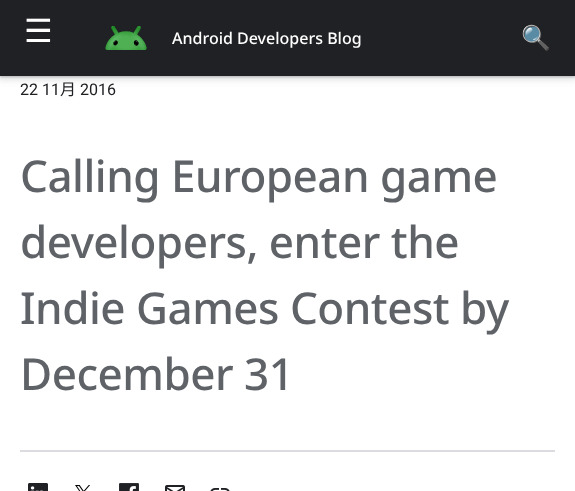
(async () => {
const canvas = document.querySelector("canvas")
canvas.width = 575
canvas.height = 491
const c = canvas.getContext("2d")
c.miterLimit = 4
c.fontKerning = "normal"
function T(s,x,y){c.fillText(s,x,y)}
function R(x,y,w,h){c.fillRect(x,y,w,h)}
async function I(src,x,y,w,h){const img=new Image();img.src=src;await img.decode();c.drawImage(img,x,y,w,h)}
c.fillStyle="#fff"
R(0,0,575,491)
c.fillStyle="#3c404326"
c.filter="blur(3px)"
c.beginPath()
c.rect(-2,0,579,80)
c.fill()
c.filter="none"
c.fillStyle="#3c40434d"
c.filter="blur(1px)"
c.beginPath()
c.rect(0,1,575,76)
c.fill()
c.filter="none"
c.fillStyle="#202124"
R(0,0,575,76)
c.font="32px DejaVu Sans"
c.fillStyle="#fff"
T("☰",24,42)
await I("1.png",105,26,42,24)
c.font="500 16px Noto Sans"
T("Android Developers Blog",172,44)
c.font="24px Noto Color Emoji"
T("🔍",521,46)
c.font="16px Roboto"
c.fillStyle="#202124"
T("22 11",20,95)
c.font="16px Noto Sans CJK TC"
T("月",60,95)
c.font="16px Roboto"
T("2016",80,95)
c.letterSpacing="-0.5px"
c.font="500 44px Noto Sans"
c.fillStyle="#5f6368"
T("Calling European game",20,192)
T("developers, enter the",20,258)
T("Indie Games Contest by",20,324)
T("December 31",20,390)
c.fillStyle="#dadce0"
R(20,450,535,2)
await I("2.png",28,483,20,8)
await I("3.png",75,485,15,6)
await I("4.png",119,483,20,8)
await I("5.png",165,485,20,6)
await I("6.png",210,488,20,3)
})()
